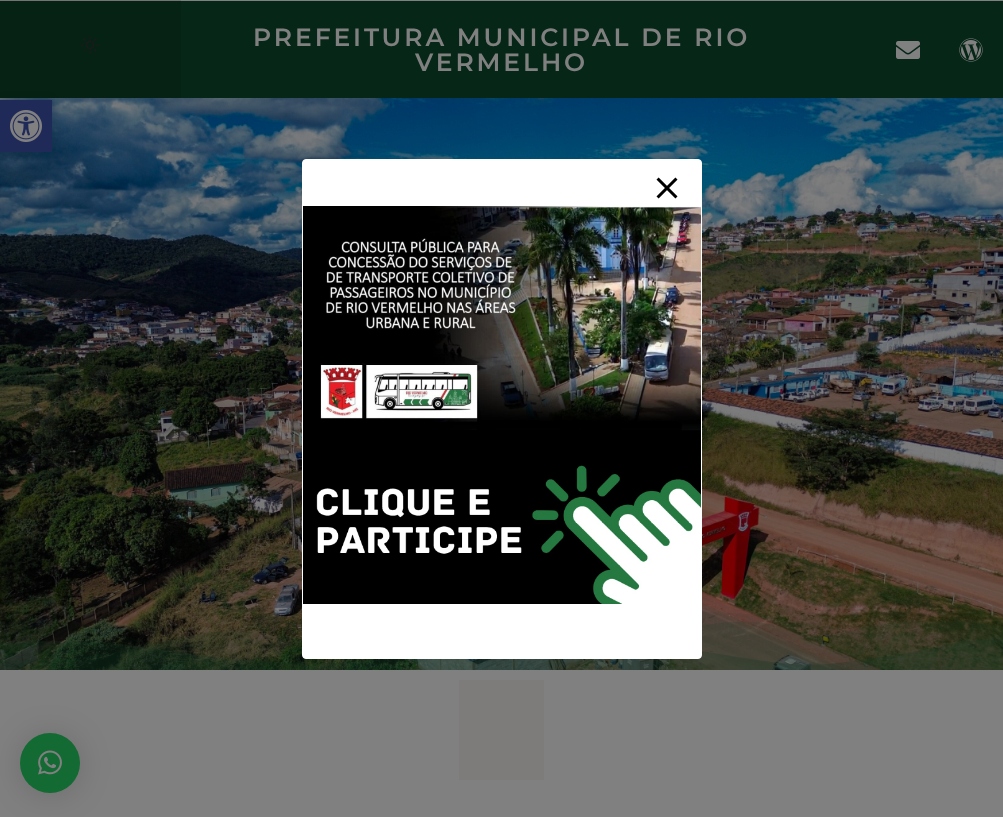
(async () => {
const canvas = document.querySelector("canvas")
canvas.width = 1003
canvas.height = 817
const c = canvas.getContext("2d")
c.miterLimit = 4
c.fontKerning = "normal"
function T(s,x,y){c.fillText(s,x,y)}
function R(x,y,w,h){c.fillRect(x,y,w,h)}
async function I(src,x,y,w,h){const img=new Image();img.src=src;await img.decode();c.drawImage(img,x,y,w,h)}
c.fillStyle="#808080"
R(0,0,1003,817)
c.fillStyle="#737373"
R(0,0,181,1)
c.fillStyle="#062617"
R(181,1,822,97)
c.fillStyle="#062215"
R(0,1,181,97)
await I("1.png",81,36,18,18)
c.letterSpacing="2.9px"
c.font="600 25px Montserrat"
c.fillStyle="#808080"
T("PREFEITURA MUNICIPAL DE RIO",253,46)
T("VERMELHO",415,71)
await I("2.png",896,41,24,18)
await I("3.png",959,38,24,24)
await I("4.png",0,98,1003,572)
await I("5.png",0,612,1003,58)
c.fillStyle="#7e7b7b"
R(459,680,85,100)
c.fillStyle="#0000001a"
c.filter="blur(5px)"
c.beginPath()
c.rect(0,100,52,52)
c.fill()
c.filter="none"
c.fillStyle="#202a59"
R(0,100,52,52)
await I("6.png",10,110,32,32)
c.fillStyle="#fff"
c.beginPath()
c.roundRect(302.5,159.5,399,499,3.5)
c.fill()
c.strokeStyle="#fff"
c.stroke()
await I("7.png",656,177,22,22)
await I("8.png",303,206,398,398)
c.fillStyle="#00000029"
c.filter="blur(16px)"
c.beginPath()
c.roundRect(20,735,60,60,30)
c.fill()
c.filter="none"
c.fillStyle="#136a33"
c.beginPath()
c.arc(50,763,30,0,7)
c.fill()
await I("9.png",38,750,24,25)
})()
